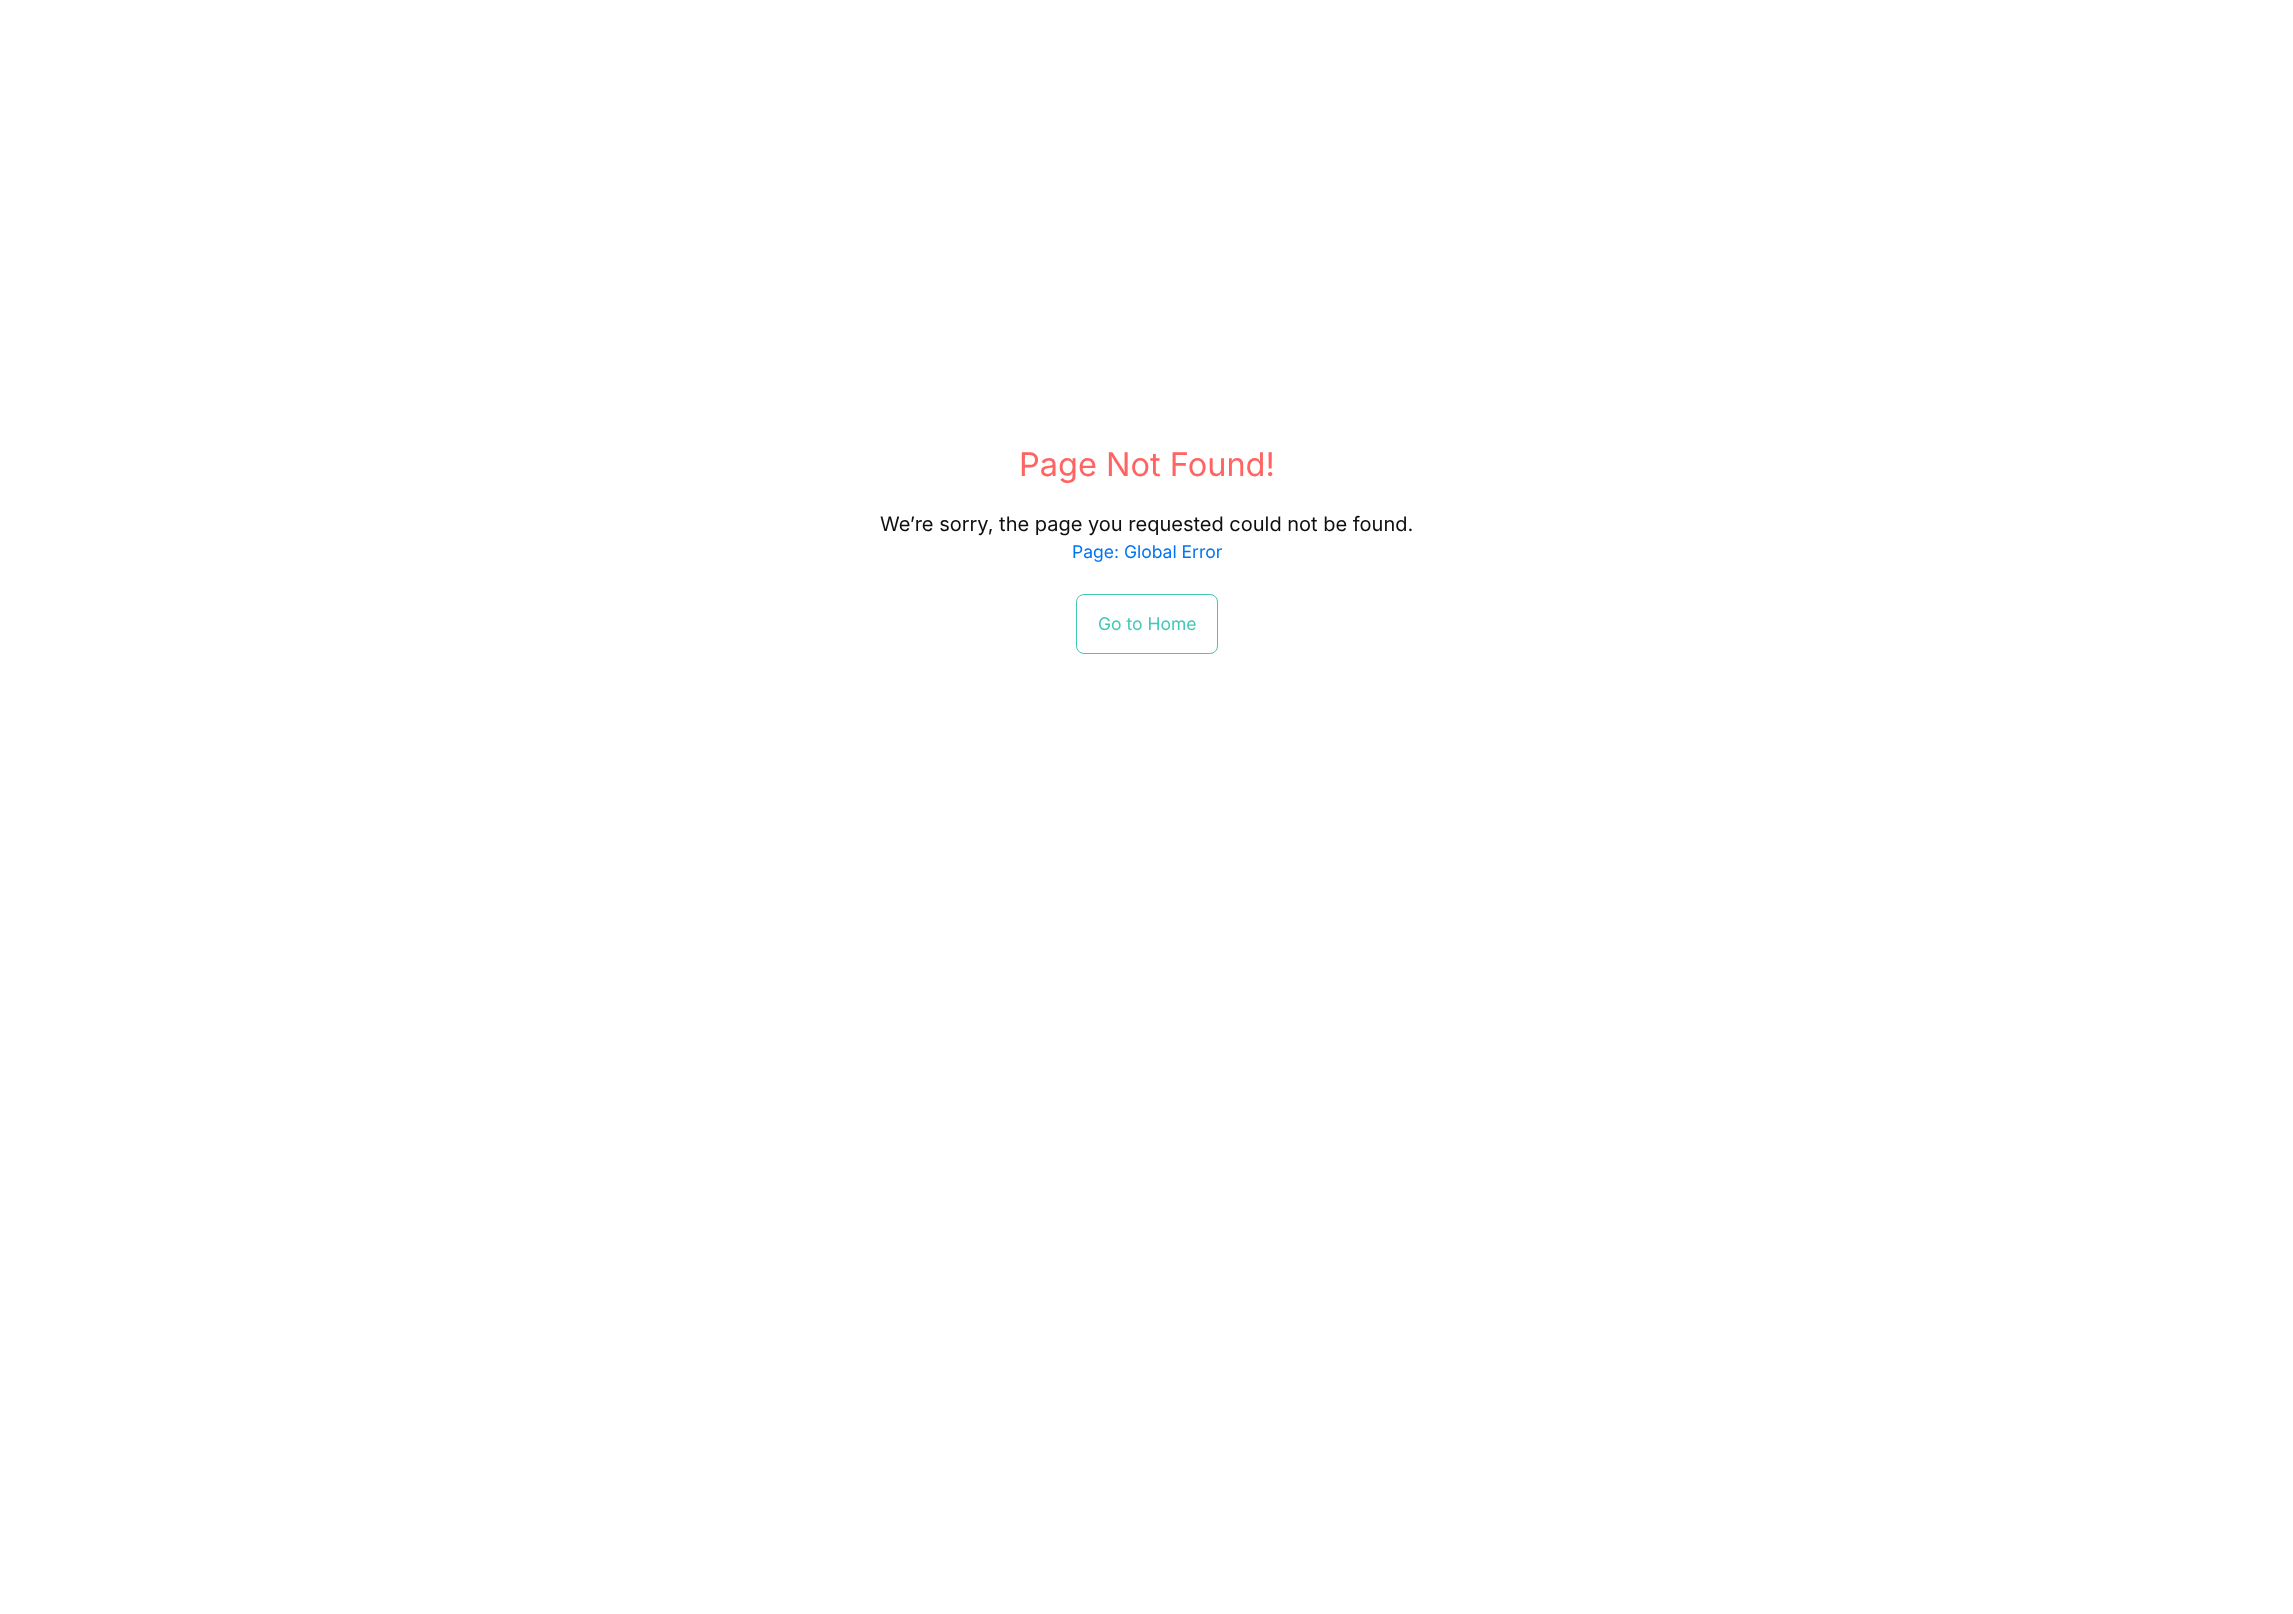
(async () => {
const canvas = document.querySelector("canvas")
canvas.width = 2293
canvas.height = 1614
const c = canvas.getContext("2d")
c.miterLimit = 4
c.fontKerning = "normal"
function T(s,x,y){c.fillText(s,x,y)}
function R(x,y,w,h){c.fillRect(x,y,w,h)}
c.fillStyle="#fff"
R(0,0,2293,1614)
c.font="32.5px Inter"
c.fillStyle="#fe6461"
T("Page Not Found!",1019,476)
c.font="20px Inter"
c.fillStyle="#0f0f0f"
T("We’re sorry, the page you requested could not be found.",880,531)
c.font="17.5px Inter"
c.fillStyle="#0075f2"
T("Page: Global Error",1072,558)
c.beginPath()
c.roundRect(1076.5,594.5,141,59,7.5)
c.strokeStyle="#42c8b7"
c.stroke()
c.fillStyle="#42c8b7"
T("Go to Home",1098,630)
})()
